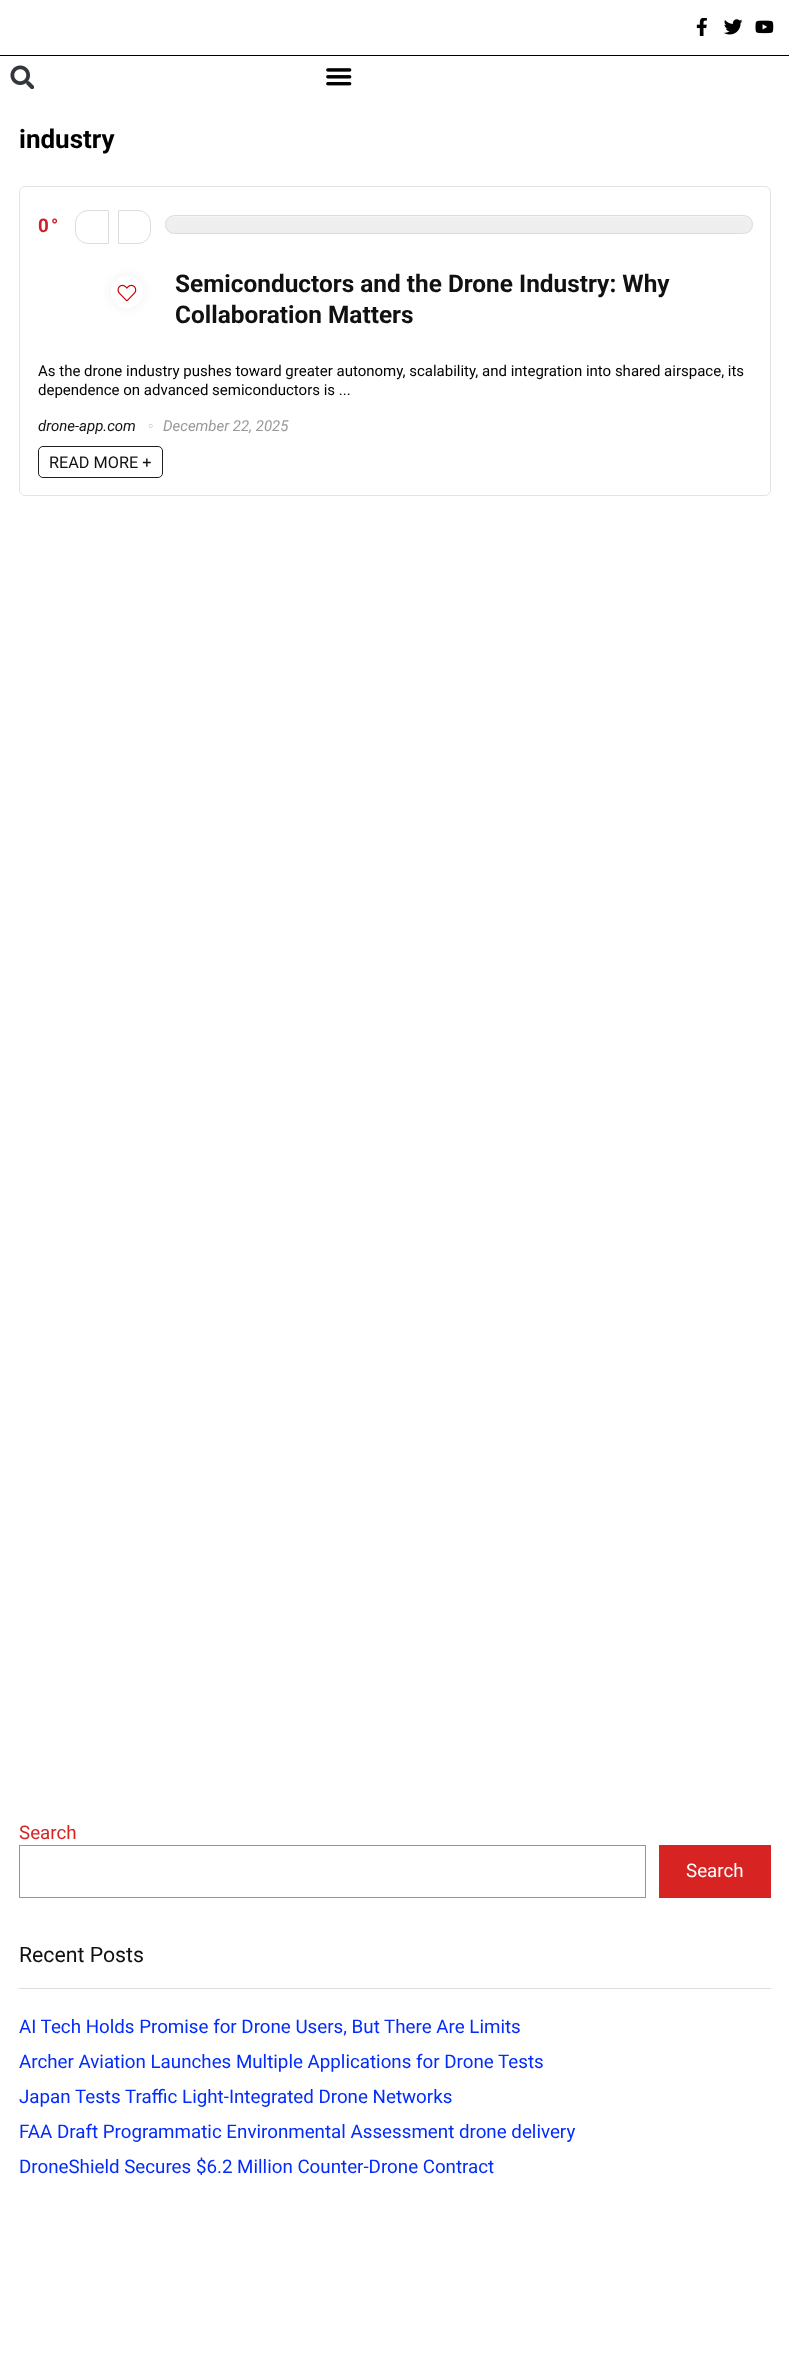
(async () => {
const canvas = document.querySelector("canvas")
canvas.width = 789
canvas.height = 2371
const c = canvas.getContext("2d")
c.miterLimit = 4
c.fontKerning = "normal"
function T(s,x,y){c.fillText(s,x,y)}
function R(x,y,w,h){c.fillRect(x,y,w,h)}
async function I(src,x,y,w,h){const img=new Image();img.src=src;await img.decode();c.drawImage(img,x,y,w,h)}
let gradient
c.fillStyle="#fff"
R(0,0,789,2371)
c.fillStyle="#000"
R(0,55,789,1)
await I("1.png",696,18,11,18)
await I("2.png",724,19,19,16)
await I("3.png",755,20,19,14)
await I("4.png",10,65,24,24)
await I("5.png",326,68,26,18)
c.font="bold 26px Roboto"
T("industry",19,148)
c.beginPath()
c.roundRect(19.5,186.5,751,309,5.5)
c.strokeStyle="#e3e3e3"
c.stroke()
c.font="bold 18.75px Roboto"
c.fillStyle="#ca212a"
T("0",38,232)
T("°",51,232)
c.beginPath()
c.roundRect(75.5,210.5,33,33,[12.5,0,0,12.5])
c.strokeStyle="#dcddde"
c.stroke()
c.beginPath()
c.roundRect(118.5,210.5,32,33,[0,12.5,12.5,0])
c.stroke()
c.save()
c.beginPath()
c.roundRect(165,215,588,19,9.5)
c.clip()
gradient = c.createLinearGradient(459,216,459,233)
gradient.addColorStop(.08,"#f5f5f5")
gradient.addColorStop(.08,"#f0f0f0")
gradient.addColorStop(1,"#eee")
c.fillStyle = gradient
R(165,216,588,17)
c.restore()
c.beginPath()
c.roundRect(165.5,215.5,587,18,9)
c.strokeStyle="#ddd"
c.stroke()
c.fillStyle="#efefef"
c.filter="blur(6px)"
c.beginPath()
c.roundRect(111,276,32,32,16)
c.fill()
c.filter="none"
c.fillStyle="#fff"
c.beginPath()
c.arc(127,292,16,0,7)
c.fill()
await I("6.png",117,284,20,18)
c.font="bold 24.4px Roboto"
c.fillStyle="#111"
T("Semiconductors and the Drone Industry: Why",175,292)
T("Collaboration Matters",175,323)
c.font="15px Roboto"
c.fillStyle="#000"
T("As the drone industry pushes toward greater autonomy, scalability, and integration into shared airspace, its",38,376)
T("dependence on advanced semiconductors is ...",38,395)
c.font="italic 15px Roboto"
c.fillStyle="#111"
T("drone-app.com",38,431)
await I("7.png",148,424,5,4)
c.fillStyle="#999"
T("December 22, 2025",163,431)
c.beginPath()
c.roundRect(38.5,446.5,124,31,4.5)
c.strokeStyle="#1e1e1e"
c.stroke()
c.font="16.25px Roboto"
c.fillStyle="#111"
T("READ MORE +",49,468)
c.font="18.75px Roboto"
c.fillStyle="#d72322"
T("Search",19,1839)
c.strokeStyle="#949494"
c.strokeRect(19.5,1845.5,626,52)
R(659,1845,112,53)
c.fillStyle="#fff"
T("Search",686,1877)
c.fillStyle="#ddd"
R(19,1988,752,1)
c.font="21.25px Roboto"
c.fillStyle="#111"
T("Recent Posts",19,1962)
c.font="18.75px Roboto"
c.fillStyle="#032bfb"
T("AI Tech Holds Promise for Drone Users, But There Are Limits",19,2033)
T("Archer Aviation Launches Multiple Applications for Drone Tests",19,2068)
T("Japan Tests Traffic Light-Integrated Drone Networks",19,2103)
T("FAA Draft Programmatic Environmental Assessment drone delivery",19,2138)
T("DroneShield Secures $6.2 Million Counter-Drone Contract",19,2173)
})()
